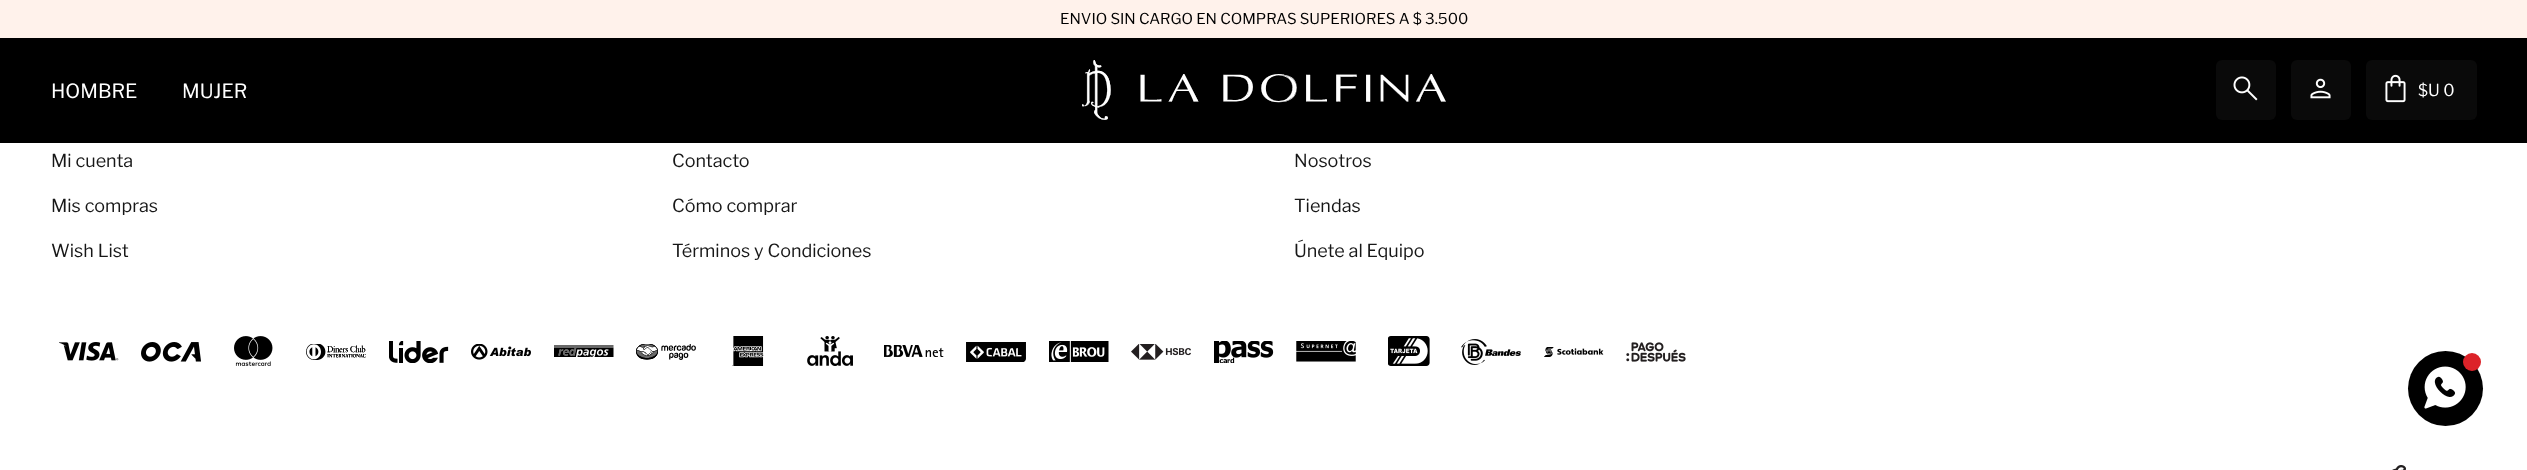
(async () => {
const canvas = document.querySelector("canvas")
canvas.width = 2527
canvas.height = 470
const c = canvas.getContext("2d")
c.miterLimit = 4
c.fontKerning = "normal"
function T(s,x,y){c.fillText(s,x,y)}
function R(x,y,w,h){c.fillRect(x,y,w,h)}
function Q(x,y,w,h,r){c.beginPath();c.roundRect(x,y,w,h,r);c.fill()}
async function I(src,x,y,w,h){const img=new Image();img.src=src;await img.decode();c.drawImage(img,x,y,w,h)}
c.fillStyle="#fff"
R(0,0,2527,470)
c.fillStyle="#fff2eb"
R(0,0,2527,38)
c.font="15px Libre Franklin"
c.fillStyle="#000"
T("ENVIO SIN CARGO EN COMPRAS SUPERIORES A $ 3.500",1060,24)
R(0,38,2527,105)
c.font="19.5px Libre Franklin"
c.fillStyle="#fff"
T("HOMBRE",51,98)
T("MUJER",182,98)
await I("1.png",1082,60,364,60)
c.fillStyle="#0a0a0a"
Q(2216,60,60,60,6)
await I("2.png",2233,76,25,25)
Q(2291,60,60,60,6)
await I("3.png",2310,78,21,21)
Q(2366,60,111,60,6)
await I("4.png",2385,74,21,29)
c.font="16.5px Libre Franklin"
c.fillStyle="#fff"
T("$U 0",2418,96)
c.font="18px Libre Franklin"
c.fillStyle="#171717"
T("Mi cuenta",51,167)
T("Mis compras",51,212)
T("Wish List",51,257)
T("Contacto",672,167)
T("Cómo comprar",672,212)
T("Términos y Condiciones",672,257)
T("Nosotros",1294,167)
T("Tiendas",1294,212)
T("Únete al Equipo",1294,257)
await I("5.png",59,342,60,19)
await I("6.png",141,342,60,20)
await I("7.png",234,336,39,30)
await I("8.png",306,344,60,16)
await I("9.png",389,341,60,22)
await I("10.png",471,344,60,16)
await I("11.png",554,345,60,12)
await I("12.png",636,344,60,16)
await I("13.png",732,336,32,30)
await I("14.png",807,336,46,30)
await I("15.png",884,345,60,12)
await I("16.png",966,342,60,20)
await I("17.png",1049,341,60,21)
await I("18.png",1131,344,60,16)
await I("19.png",1214,341,60,22)
await I("20.png",1296,341,60,21)
await I("21.png",1388,336,42,30)
await I("22.png",1461,339,60,26)
await I("23.png",1544,347,60,10)
await I("24.png",1626,342,60,20)
await I("25.png",2392,465,14,5)
c.fillStyle="#000"
c.beginPath()
c.arc(2445.5,388.5,37.5,0,7)
c.fill()
await I("26.png",2424,366,42,43)
c.fillStyle="#dc2329"
c.beginPath()
c.arc(2472,362,9,0,7)
c.fill()
})()
